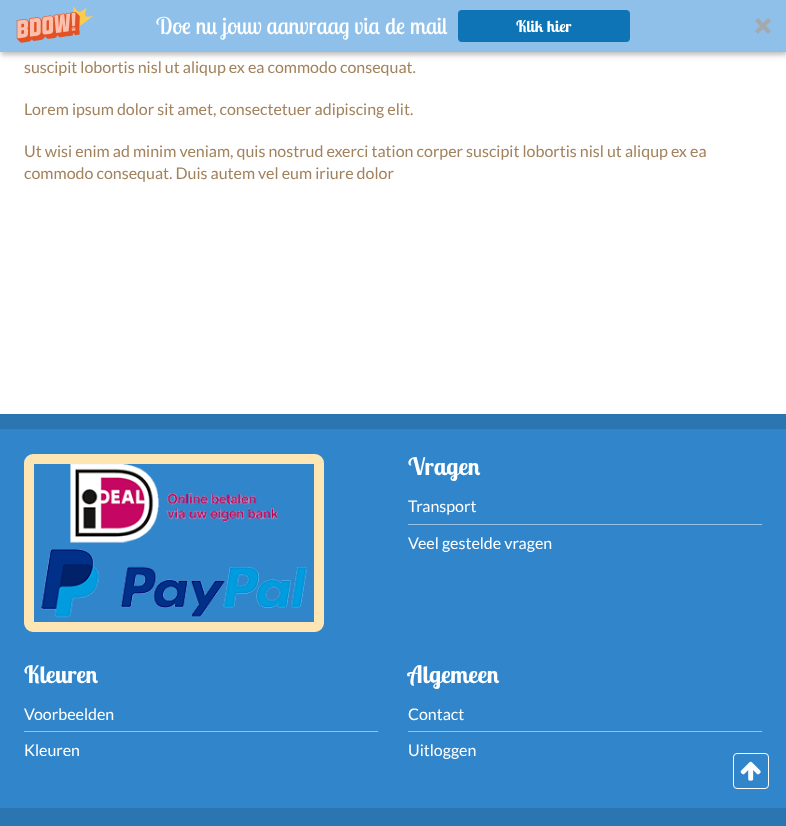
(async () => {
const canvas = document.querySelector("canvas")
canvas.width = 786
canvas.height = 826
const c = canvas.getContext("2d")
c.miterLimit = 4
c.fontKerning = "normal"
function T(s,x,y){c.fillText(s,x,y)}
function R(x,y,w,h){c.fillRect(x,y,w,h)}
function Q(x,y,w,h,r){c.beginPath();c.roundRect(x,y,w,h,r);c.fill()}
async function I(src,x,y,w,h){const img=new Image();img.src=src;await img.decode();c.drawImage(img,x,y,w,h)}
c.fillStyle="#fff"
R(0,0,786,826)
c.fillStyle="#00000040"
c.filter="blur(2.5px)"
c.beginPath()
c.rect(1,3,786,52)
c.fill()
c.filter="none"
c.fillStyle="#8fc0ea"
R(0,0,786,52)
await I("1.png",16,6,78,37)
c.font="23px Lobster Two"
c.fillStyle="#fff"
T("Doe nu jouw aanvraag via de mail",156,34)
c.fillStyle="#0f74b5"
Q(458,10,172,32,4)
c.font="bold 16px Lobster Two"
c.fillStyle="#fff"
T("Klik hier",516,32)
await I("2.png",755,18,16,16)
c.font="16px Lato"
c.fillStyle="#a2825c"
T("suscipit lobortis nisl ut aliqup ex ea commodo consequat.",24,73)
T("Lorem ipsum dolor sit amet, consectetuer adipiscing elit.",24,115)
T("Ut wisi enim ad minim veniam, quis nostrud exerci tation corper suscipit lobortis nisl ut aliqup ex ea",24,157)
T("commodo consequat. Duis autem vel eum iriure dolor",24,179)
c.fillStyle="#3185cb"
R(0,429,786,379)
c.fillStyle="#2b75b3"
R(0,414,786,15)
c.beginPath()
c.roundRect(29,459,290,168,4)
c.strokeStyle="#fee6b4"
c.lineWidth=10
c.stroke()
await I("3.png",41,464,266,154)
c.font="bold 24px Lobster Two"
c.fillStyle="#fff"
T("Vragen",408,475)
c.font="16px Lato"
T("Transport",408,512)
c.fillStyle="#98c2e5"
R(408,524,354,1)
c.fillStyle="#fff"
T("Veel gestelde vragen",408,549)
c.font="bold 24px Lobster Two"
T("Kleuren",24,683)
c.font="16px Lato"
T("Voorbeelden",24,720)
c.fillStyle="#98c2e5"
R(24,731,354,1)
c.fillStyle="#fff"
T("Kleuren",24,756)
c.font="bold 24px Lobster Two"
T("Algemeen",408,683)
c.font="16px Lato"
T("Contact",408,720)
c.fillStyle="#98c2e5"
R(408,731,354,1)
c.fillStyle="#fff"
T("Uitloggen",408,756)
c.beginPath()
c.roundRect(733.5,753.5,35,35,3.5)
c.strokeStyle="#fff"
c.lineWidth=1
c.stroke()
await I("4.png",740,761,21,20)
c.fillStyle="#2b75b3"
R(0,808,786,18)
})()
